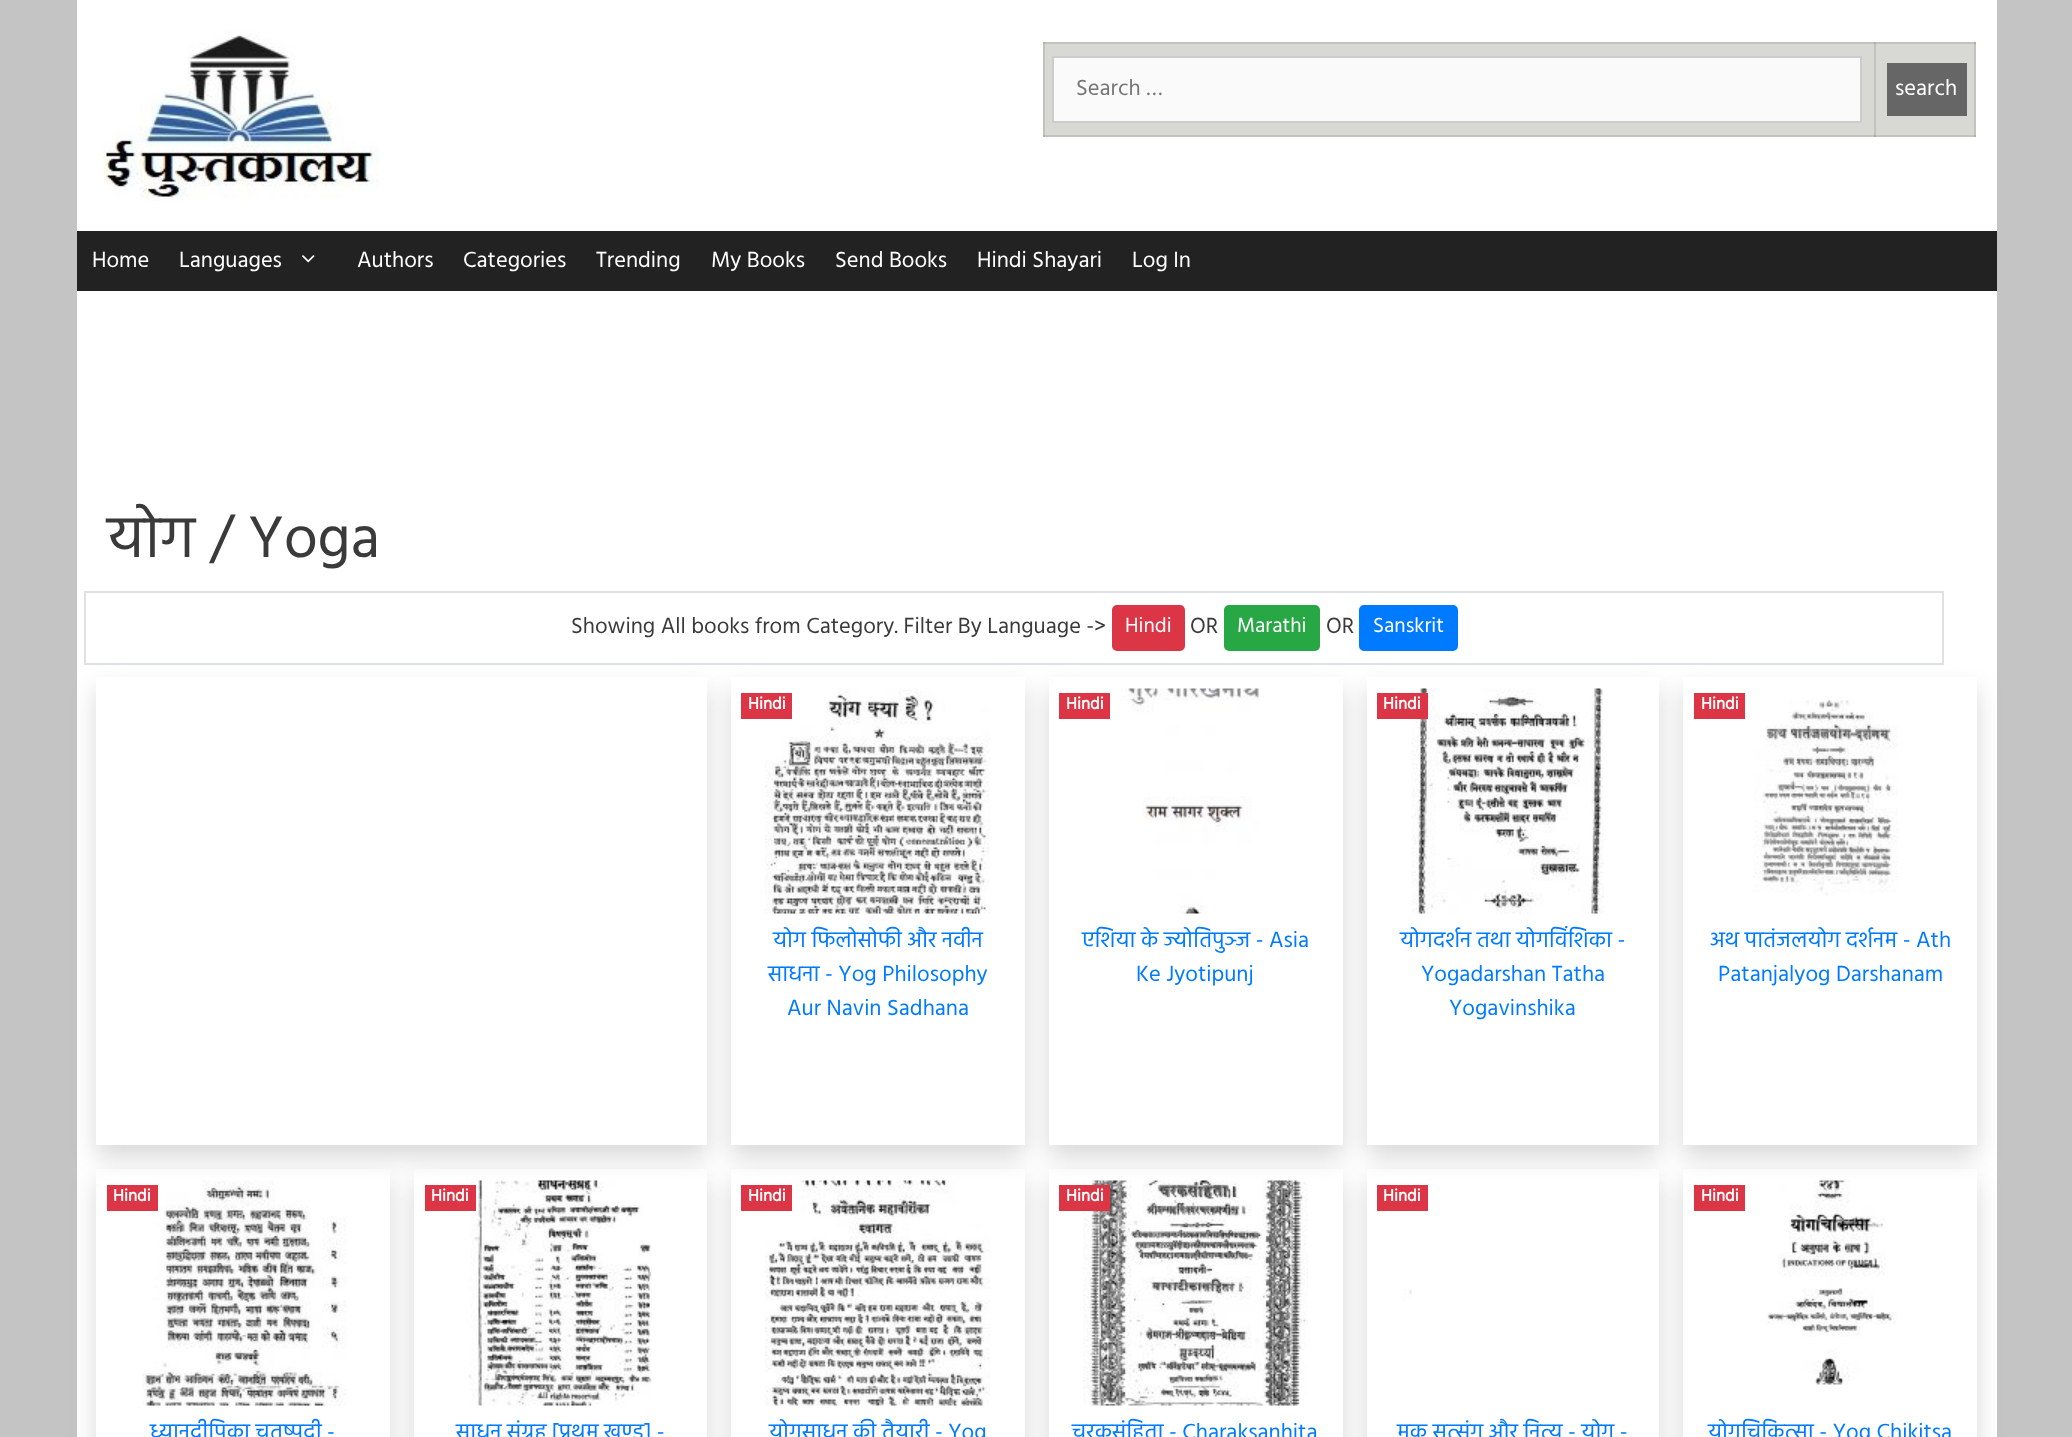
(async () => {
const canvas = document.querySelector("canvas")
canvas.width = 2072
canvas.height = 1437
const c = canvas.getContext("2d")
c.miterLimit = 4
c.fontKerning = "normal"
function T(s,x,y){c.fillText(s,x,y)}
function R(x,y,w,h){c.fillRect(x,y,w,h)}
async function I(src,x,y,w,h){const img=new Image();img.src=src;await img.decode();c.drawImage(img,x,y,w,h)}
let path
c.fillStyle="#c4c4c4"
R(0,0,2072,1437)
c.fillStyle="#fff"
R(77,0,1920,231)
await I("1.png",103,30,276,171)
c.fillStyle="#d8d8d4"
R(1045,44,929,91)
c.fillStyle="#c2c2bf"
R(1043,135,832,2)
R(1874,42,2,95)
R(1874,135,102,2)
c.fillStyle="#afafac"
R(1874,135,2,2)
c.fillStyle="#9e9e9b"
R(1874,135,1,2)
c.fillStyle="#c2c2bf"
R(1974,42,2,95)
c.fillStyle="#afafac"
R(1974,135,2,2)
c.fillStyle="#c2c2bf"
R(1043,42,2,95)
c.fillStyle="#afafac"
R(1043,135,2,2)
c.fillStyle="#c2c2bf"
R(1043,42,933,2)
c.fillStyle="#afafac"
R(1874,42,2,2)
R(1974,42,2,2)
R(1043,42,2,2)
c.fillStyle="#fafafa"
c.beginPath()
c.rect(1053,57,808,65)
c.fill()
c.strokeStyle="#ccc"
c.lineWidth=2
c.stroke()
c.font="22.5px Hind"
c.fillStyle="#757575"
T("Search …",1076,95)
c.fillStyle="#666"
R(1887,63,80,53)
c.fillStyle="#fff"
T("search",1895,95)
c.fillStyle="#222"
R(77,231,1920,60)
c.fillStyle="#fff"
T("Home",92,267)
T("Languages",179,267)
await I("2.png",302,255,13,8)
T("Authors",357,267)
T("Categories",463,267)
T("Trending",596,267)
T("My Books",711,267)
T("Send Books",835,267)
T("Hindi Shayari",977,267)
T("Log In",1132,267)
R(77,291,1920,1146)
c.font="60px Hind"
c.fillStyle="#3a3a3a"
T("योग / Yoga",107,557)
c.strokeStyle="#dee2e6"
c.strokeRect(85,592,1858,72)
c.font="22.5px Hind"
T("Showing All books from Category. Filter By Language ->",571,633)
c.fillStyle="#dc3545"
c.beginPath()
c.roundRect(1113,606,71,44,4)
c.fill()
c.strokeStyle="#dc3545"
c.stroke()
c.font="21px Hind"
c.fillStyle="#fff"
T("Hindi",1125,632)
c.font="22.5px Hind"
c.fillStyle="#3a3a3a"
T("OR",1190,633)
c.fillStyle="#28a745"
c.beginPath()
c.roundRect(1225,606,94,44,4)
c.fill()
c.strokeStyle="#28a745"
c.stroke()
c.font="21px Hind"
c.fillStyle="#fff"
T("Marathi",1237,632)
c.font="22.5px Hind"
c.fillStyle="#3a3a3a"
T("OR",1326,633)
c.fillStyle="#007bff"
c.beginPath()
c.roundRect(1360,606,97,44,4)
c.fill()
c.strokeStyle="#007bff"
c.stroke()
c.font="21px Hind"
c.fillStyle="#fff"
T("Sanskrit",1373,632)
c.save()
path = new Path2D("M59 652h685v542h-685zm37 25h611v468h-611z")
c.clip(path,"evenodd")
c.fillStyle="#00000026"
c.filter="blur(12px)"
c.beginPath()
c.rect(96,689,611,468)
c.fill()
c.filter="none"
c.restore()
c.save()
path = new Path2D("M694 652h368v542h-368zm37 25h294v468h-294z")
c.clip(path,"evenodd")
c.fillStyle="#00000026"
c.filter="blur(12px)"
c.beginPath()
c.rect(731,689,294,468)
c.fill()
c.filter="none"
c.restore()
await I("3.png",765,688,225,226)
c.fillStyle="#dc3545"
R(741,693,51,26)
c.font="bold 17px Hind"
c.fillStyle="#fff"
T("Hindi",748,709)
c.font="22.5px Hind"
c.fillStyle="#007bff"
T("योग फिलोसोफी और नवीन",773,947)
T("साधना - Yog Philosophy",768,981)
T("Aur Navin Sadhana",787,1015)
c.save()
path = new Path2D("M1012 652h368v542h-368zm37 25h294v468h-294z")
c.clip(path,"evenodd")
c.fillStyle="#00000026"
c.filter="blur(12px)"
c.beginPath()
c.rect(1049,689,294,468)
c.fill()
c.filter="none"
c.restore()
c.fillStyle="#dc3545"
R(1059,693,51,26)
c.font="bold 17px Hind"
c.fillStyle="#fff"
T("Hindi",1066,709)
await I("4.png",1121,688,140,226)
c.font="22.5px Hind"
c.fillStyle="#007bff"
T("एशिया के ज्योतिपुञ्ज - Asia",1082,947)
T("Ke Jyotipunj",1136,981)
c.save()
path = new Path2D("M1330 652h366v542h-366zm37 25h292v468h-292z")
c.clip(path,"evenodd")
c.fillStyle="#00000026"
c.filter="blur(12px)"
c.beginPath()
c.rect(1367,689,292,468)
c.fill()
c.filter="none"
c.restore()
await I("5.png",1411,688,193,226)
c.fillStyle="#dc3545"
R(1377,693,51,26)
c.font="bold 17px Hind"
c.fillStyle="#fff"
T("Hindi",1383,709)
c.font="22.5px Hind"
c.fillStyle="#007bff"
T("योगदर्शन तथा योगविंशिका -",1400,947)
T("Yogadarshan Tatha",1421,981)
T("Yogavinshika",1449,1015)
c.save()
path = new Path2D("M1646 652h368v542h-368zm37 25h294v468h-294z")
c.clip(path,"evenodd")
c.fillStyle="#00000026"
c.filter="blur(12px)"
c.beginPath()
c.rect(1683,689,294,468)
c.fill()
c.filter="none"
c.restore()
c.fillStyle="#dc3545"
R(1694,693,51,26)
c.font="bold 17px Hind"
c.fillStyle="#fff"
T("Hindi",1701,709)
await I("6.png",1753,700,145,196)
c.font="22.5px Hind"
c.fillStyle="#007bff"
T("अथ पातंजलयोग दर्शनम - Ath",1710,947)
T("Patanjalyog Darshanam",1718,981)
c.save()
path = new Path2D("M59 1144h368v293h-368zm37 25h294v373h-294z")
c.clip(path,"evenodd")
c.fillStyle="#00000026"
c.filter="blur(12px)"
c.beginPath()
c.rect(96,1181,294,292)
c.fill()
c.filter="none"
c.restore()
await I("7.png",142,1180,205,226)
c.fillStyle="#dc3545"
R(107,1185,51,26)
c.font="bold 17px Hind"
c.fillStyle="#fff"
T("Hindi",113,1201)
c.font="22.5px Hind"
c.fillStyle="#007bff"
T("ध्यानदीपिका चतुष्पदी -",150,1439)
c.save()
path = new Path2D("M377 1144h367v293h-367zm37 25h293v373h-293z")
c.clip(path,"evenodd")
c.fillStyle="#00000026"
c.filter="blur(12px)"
c.beginPath()
c.rect(414,1181,293,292)
c.fill()
c.filter="none"
c.restore()
await I("8.png",468,1180,184,226)
c.fillStyle="#dc3545"
R(425,1185,51,26)
c.font="bold 17px Hind"
c.fillStyle="#fff"
T("Hindi",431,1201)
c.font="22.5px Hind"
c.fillStyle="#007bff"
T("साधन संग्रह [प्रथम खण्ड] -",456,1439)
c.save()
path = new Path2D("M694 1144h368v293h-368zm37 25h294v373h-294z")
c.clip(path,"evenodd")
c.fillStyle="#00000026"
c.filter="blur(12px)"
c.beginPath()
c.rect(731,1181,294,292)
c.fill()
c.filter="none"
c.restore()
await I("9.png",765,1180,225,226)
c.fillStyle="#dc3545"
R(741,1185,51,26)
c.font="bold 17px Hind"
c.fillStyle="#fff"
T("Hindi",748,1201)
c.font="22.5px Hind"
c.fillStyle="#007bff"
T("योगसाधन की तैयारी - Yog",769,1439)
c.save()
path = new Path2D("M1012 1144h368v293h-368zm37 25h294v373h-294z")
c.clip(path,"evenodd")
c.fillStyle="#00000026"
c.filter="blur(12px)"
c.beginPath()
c.rect(1049,1181,294,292)
c.fill()
c.filter="none"
c.restore()
await I("10.png",1083,1180,225,226)
c.fillStyle="#dc3545"
R(1059,1185,51,26)
c.font="bold 17px Hind"
c.fillStyle="#fff"
T("Hindi",1066,1201)
c.font="22.5px Hind"
c.fillStyle="#007bff"
T("चरकसंहिता - Charaksanhita",1072,1439)
c.save()
path = new Path2D("M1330 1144h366v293h-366zm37 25h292v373h-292z")
c.clip(path,"evenodd")
c.fillStyle="#00000026"
c.filter="blur(12px)"
c.beginPath()
c.rect(1367,1181,292,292)
c.fill()
c.filter="none"
c.restore()
c.fillStyle="#dc3545"
R(1377,1185,51,26)
c.font="bold 17px Hind"
c.fillStyle="#fff"
T("Hindi",1383,1201)
await I("11.png",1403,1289,9,11)
c.font="22.5px Hind"
c.fillStyle="#007bff"
T("मूक सत्संग और नित्य - योग -",1397,1439)
c.save()
path = new Path2D("M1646 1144h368v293h-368zm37 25h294v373h-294z")
c.clip(path,"evenodd")
c.fillStyle="#00000026"
c.filter="blur(12px)"
c.beginPath()
c.rect(1683,1181,294,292)
c.fill()
c.filter="none"
c.restore()
c.fillStyle="#dc3545"
R(1694,1185,51,26)
c.font="bold 17px Hind"
c.fillStyle="#fff"
T("Hindi",1701,1201)
await I("12.png",1766,1180,131,205)
c.font="22.5px Hind"
c.fillStyle="#007bff"
T("योगचिकित्सा - Yog Chikitsa",1708,1439)
})()
